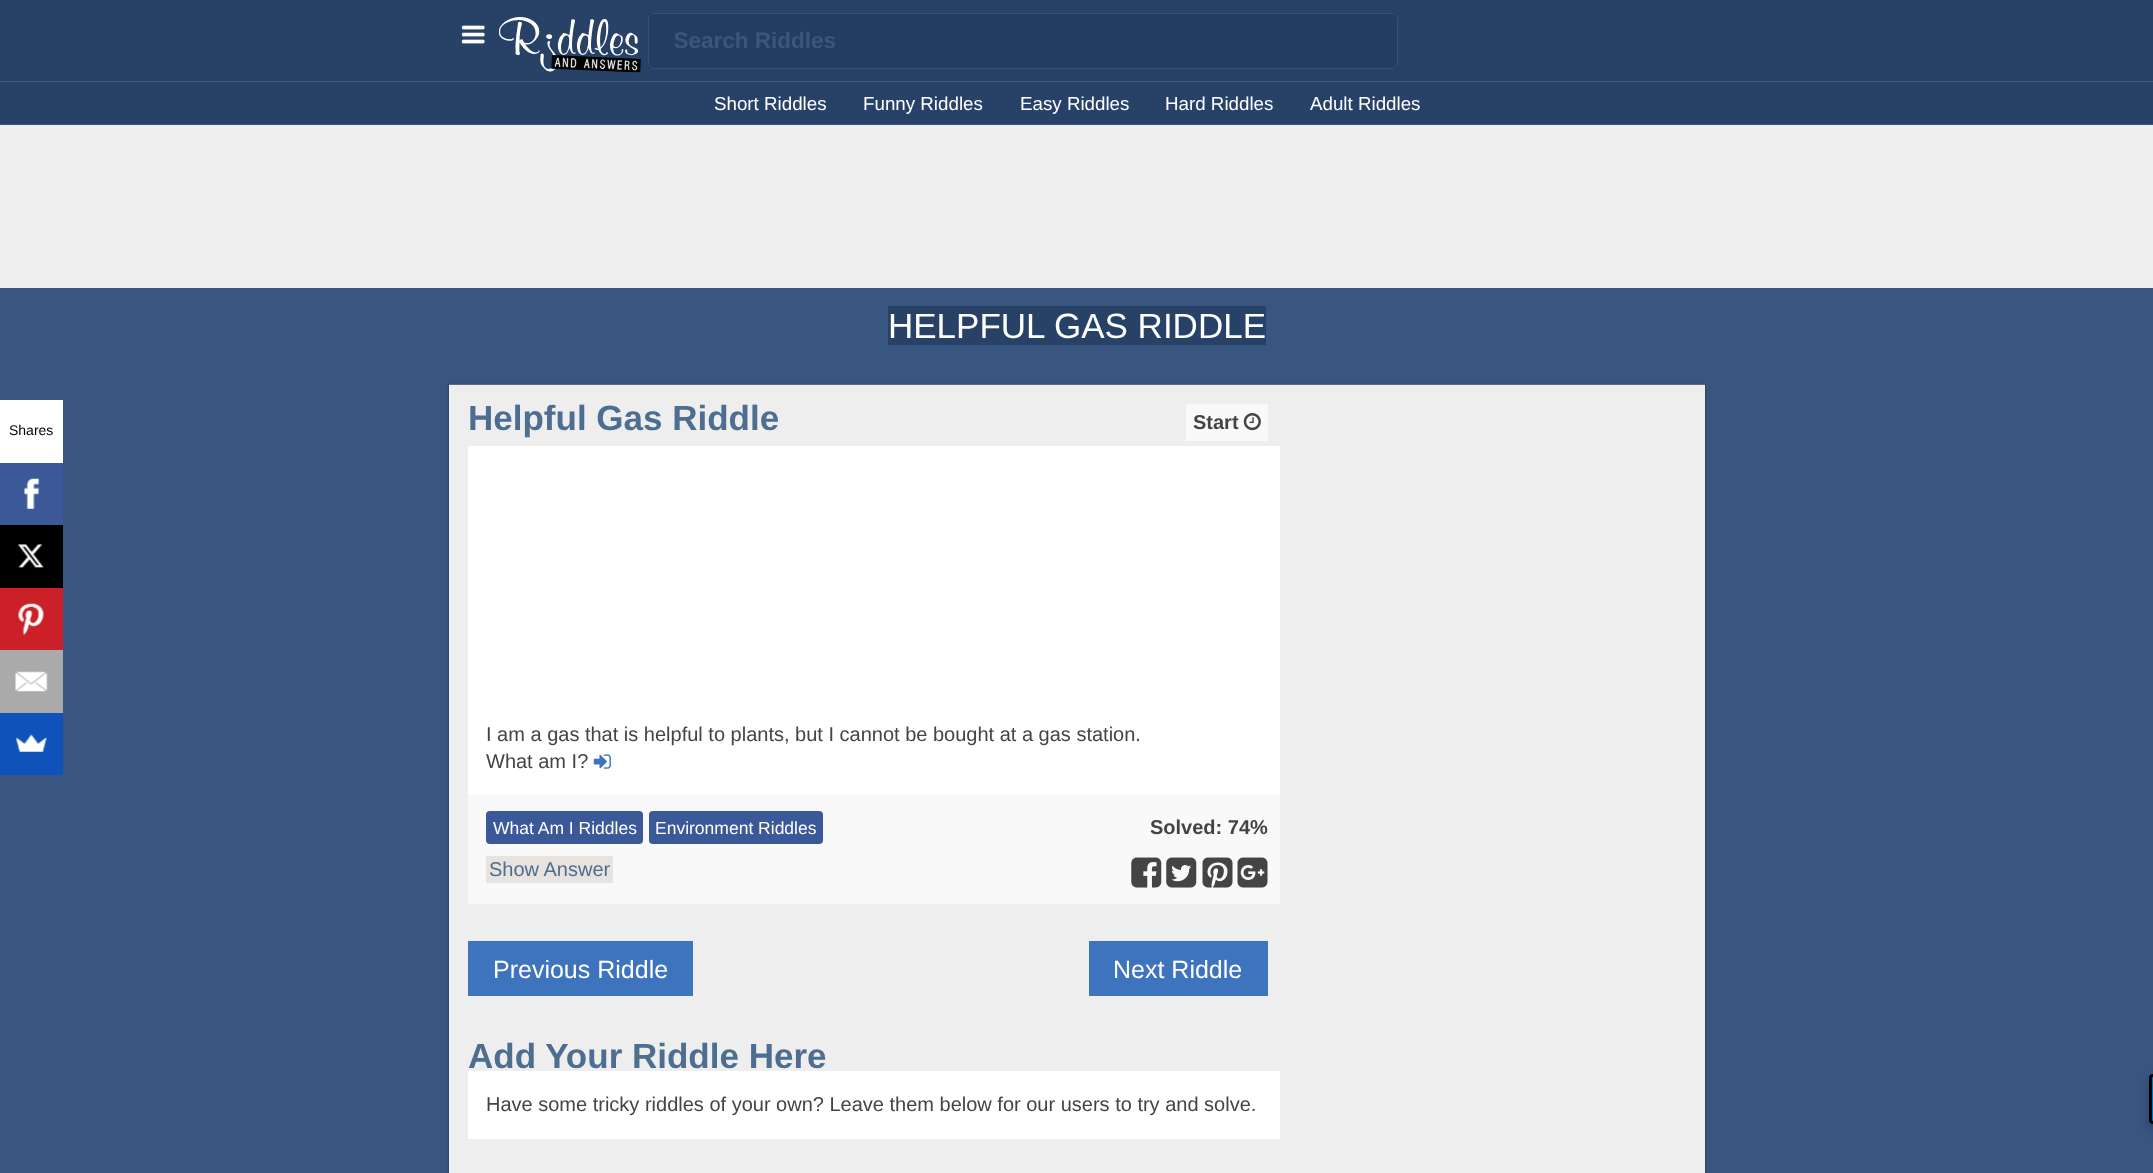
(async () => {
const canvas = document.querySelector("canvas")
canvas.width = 2153
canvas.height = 1173
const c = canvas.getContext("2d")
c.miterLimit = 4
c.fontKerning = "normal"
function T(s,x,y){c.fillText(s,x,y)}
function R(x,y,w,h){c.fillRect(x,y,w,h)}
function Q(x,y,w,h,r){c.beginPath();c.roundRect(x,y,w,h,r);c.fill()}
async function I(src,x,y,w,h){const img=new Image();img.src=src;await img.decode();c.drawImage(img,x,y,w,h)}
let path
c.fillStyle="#385680"
R(0,0,2153,1173)
c.fillStyle="#284267"
R(0,0,2153,81)
await I("1.png",461,25,24,19)
await I("2.png",499,17,142,56)
c.fillStyle="#233c60"
R(648,13,750,56)
c.beginPath()
c.roundRect(648.5,13.5,749,55,5.5)
c.strokeStyle="#375176"
c.stroke()
c.font="bold 22.5px Liberation Sans"
c.fillStyle="#3c567b"
T("  Search Riddles",661,48)
c.fillStyle="#284267"
R(0,82,2153,42)
c.fillStyle="#405a7f"
R(0,81,2153,1)
c.font="18.75px Liberation Sans"
c.fillStyle="#fff"
T("Short Riddles",714,110)
T("Funny Riddles",863,110)
T("Easy Riddles",1020,110)
T("Hard Riddles",1165,110)
T("Adult Riddles",1310,110)
R(0,400,63,63)
c.font="14px Liberation Sans"
c.fillStyle="#000"
T("Shares",9,435)
c.fillStyle="#3b5998"
R(0,463,63,62)
await I("3.png",24,478,16,31)
c.fillStyle="#000"
R(0,525,63,63)
await I("4.png",17,544,27,25)
c.fillStyle="#cb2027"
R(0,588,63,62)
await I("5.png",18,603,26,32)
c.fillStyle="#aaa"
R(0,650,63,63)
await I("6.png",15,671,33,21)
c.fillStyle="#0f52ba"
R(0,713,63,62)
await I("7.png",16,734,31,18)
c.fillStyle="#eee"
R(0,125,2153,163)
c.fillStyle="#284267"
R(888,306,378,39)
c.font="35px Liberation Sans"
c.fillStyle="#fff"
T("HELPFUL GAS RIDDLE",888,338)
c.fillStyle="#221919cc"
c.filter="blur(1px)"
c.beginPath()
c.rect(449,385,1256,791)
c.fill()
c.filter="none"
c.fillStyle="#eee"
R(449,385,1256,788)
c.fillStyle="#5e6a80"
R(449,384,1256,1)
c.font="bold 35px Liberation Sans"
c.fillStyle="#4d6e91"
T("Helpful Gas Riddle",468,430)
c.fillStyle="#f9f9f9"
R(1186,404,82,37)
c.font="bold 20px Liberation Sans"
c.fillStyle="#444"
T("Start",1193,429)
await I("8.png",1243,413,18,18)
c.fillStyle="#fff"
R(468,446,812,348)
c.font="20px Liberation Sans"
c.fillStyle="#444"
T("I am a gas that is helpful to plants, but I cannot be bought at a gas station.",486,741)
T("What am I?",486,768)
await I("9.png",593,754,18,15)
c.fillStyle="#f9f9f9"
R(468,794,812,110)
c.fillStyle="#3b5998"
Q(486,811,157,33,4)
c.font="17.5px Liberation Sans"
c.fillStyle="#fff"
T("What Am I Riddles",493,834)
c.fillStyle="#3b5998"
Q(649,811,174,33,4)
c.fillStyle="#fff"
T("Environment Riddles",655,834)
c.font="bold 20px Liberation Sans"
c.fillStyle="#444"
T("Solved: 74%",1150,834)
c.fillStyle="#e8e3df"
R(486,856,127,27)
c.font="20px Liberation Sans"
c.fillStyle="#4d6e91"
T("Show Answer",489,876)
await I("10.png",1131,857,31,31)
await I("11.png",1166,857,31,31)
await I("12.png",1202,857,31,31)
await I("13.png",1237,857,31,31)
c.fillStyle="#3e74bd"
R(468,941,225,55)
c.font="25px Liberation Sans"
c.fillStyle="#fff"
T("Previous Riddle",493,978)
c.fillStyle="#3e74bd"
R(1089,941,179,55)
c.fillStyle="#fff"
T("Next Riddle",1113,978)
c.font="bold 35px Liberation Sans"
c.fillStyle="#4d6e91"
T("Add Your Riddle Here",468,1068)
c.fillStyle="#fff"
R(468,1071,812,68)
c.font="20px Liberation Sans"
c.fillStyle="#444"
T("Have some tricky riddles of your own? Leave them below for our users to try and solve.",486,1111)
c.fillStyle="#00000033"
c.filter="blur(6px)"
c.beginPath()
c.roundRect(2149,1079,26,50,4)
c.fill()
c.filter="none"
c.fillStyle="#0073b7"
path = new Path2D("M2153 1075.5h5.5v47h-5.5c-1.5 0-2.5-1-2.5-2.5v-42c0-1.5 1-2.5 2.5-2.5z")
c.fill(path)
c.strokeStyle="#000"
c.lineWidth=3
c.stroke(path)
})()
